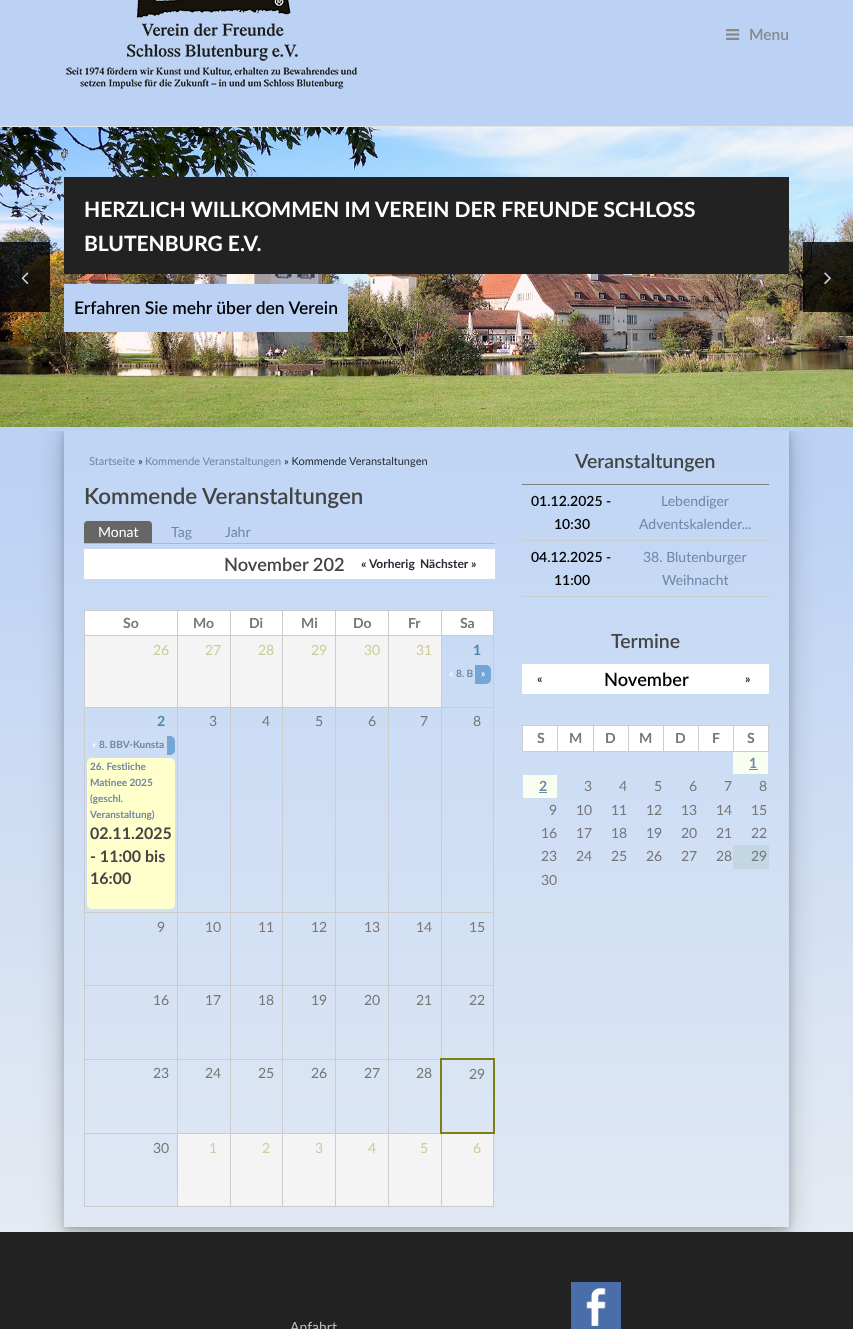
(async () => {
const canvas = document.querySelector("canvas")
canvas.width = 853
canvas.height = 1329
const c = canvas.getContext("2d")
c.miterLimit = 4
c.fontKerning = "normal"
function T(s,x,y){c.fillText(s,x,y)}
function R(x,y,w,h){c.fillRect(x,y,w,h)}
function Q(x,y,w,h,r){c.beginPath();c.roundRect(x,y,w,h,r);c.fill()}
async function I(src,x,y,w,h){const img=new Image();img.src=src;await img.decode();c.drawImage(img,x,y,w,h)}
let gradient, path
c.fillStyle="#fff"
R(0,0,853,1329)
gradient = c.createLinearGradient(426,-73,427,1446)
gradient.addColorStop(0,"#bbd2f4")
gradient.addColorStop(.36,"#bbd2f4")
gradient.addColorStop(1,"#f2f2f2")
c.fillStyle = gradient
R(0,0,853,1232)
gradient = c.createLinearGradient(426,-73,427,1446)
gradient.addColorStop(0,"#c1d6f5")
gradient.addColorStop(.36,"#c1d6f5")
gradient.addColorStop(1,"#e8edf3")
c.fillStyle = gradient
R(64,431,725,796)
c.fillStyle="#e4e4e4"
R(0,126,853,1)
await I("1.png",66,0,291,89)
await I("2.png",726,29,14,11)
c.font="600 15.5px Lato"
c.fillStyle="#888"
T("Menu",749,40)
c.save()
path = new Path2D("M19 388h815v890h-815zm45 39h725v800h-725z")
c.clip(path,"evenodd")
c.fillStyle="#00000030"
c.filter="blur(14.5px)"
c.beginPath()
c.rect(64,433,725,800)
c.fill()
c.filter="none"
c.restore()
c.save()
path = new Path2D("M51 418h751v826h-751zm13 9h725v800h-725z")
c.clip(path,"evenodd")
c.fillStyle="#00000033"
c.filter="blur(4px)"
c.beginPath()
c.rect(64,431,725,800)
c.fill()
c.filter="none"
c.restore()
c.fillStyle="#bbd2f4"
R(48,427,757,4)
await I("3.png",0,127,853,300)
c.fillStyle="#222"
R(64,177,725,97)
c.font="bold 21px Lato"
c.fillStyle="#fff"
T("HERZLICH WILLKOMMEN IM VEREIN DER FREUNDE SCHLOSS",84,217)
T("BLUTENBURG E.V.",84,251)
c.fillStyle="#bbd2f4"
R(64,284,284,48)
c.font="600 17.5px Lato"
c.fillStyle="#000"
T("Erfahren Sie mehr über den Verein",74,314)
c.fillStyle="#000000cc"
R(0,242,50,70)
await I("4.png",21,272,8,12)
R(803,242,50,70)
await I("5.png",824,272,7,12)
c.font="11px Lato"
c.fillStyle="#7086a7"
T("Startseite",89,465)
c.fillStyle="#282d35"
T("»",138,465)
c.fillStyle="#7086a7"
T("Kommende Veranstaltungen",145,465)
c.fillStyle="#282d35"
T("» Kommende Veranstaltungen",284,465)
c.font="600 22.4px Lato"
c.fillStyle="#444"
T("Kommende Veranstaltungen",84,504)
c.fillStyle="#b7b7b7"
R(84,543,411,1)
c.fillStyle="#666"
c.beginPath()
c.roundRect(84,521,68,22,[4,4,0,0])
c.fill()
c.font="14px Lato"
c.fillStyle="#fff"
T("Monat",98,537)
c.fillStyle="#7086a7"
T("Tag",171,537)
T("Jahr",225,537)
c.fillStyle="#fff"
R(84,549,411,30)
c.font="600 18.25px Lato"
c.fillStyle="#444"
T("November 202",224,571)
c.font="bold 12px Lato"
c.fillStyle="#282d35"
T("« Vorherig",361,568)
T("Nächster »",420,568)
c.fillStyle="#fff"
R(85,611,92,24)
c.fillStyle="#ccc"
R(441,610,53,1)
R(441,635,53,1)
R(441,707,53,1)
R(441,912,53,1)
R(441,985,53,1)
R(388,1059,54,1)
R(441,1013,1,47)
R(441,985,1,29)
R(388,985,54,1)
R(441,940,1,46)
R(441,912,1,29)
R(388,912,54,1)
R(441,734,1,179)
R(441,707,1,28)
R(388,707,54,1)
R(441,663,1,45)
R(441,635,1,29)
R(388,635,54,1)
R(441,610,1,26)
R(388,610,54,1)
R(493,1133,1,74)
R(441,1206,53,1)
R(441,1133,1,74)
R(388,1133,54,1)
R(388,1206,54,1)
R(388,1161,1,46)
R(388,1133,1,29)
R(335,1133,54,1)
R(388,1087,1,47)
R(388,1059,1,29)
R(335,1059,54,1)
R(388,1013,1,47)
R(388,985,1,29)
R(335,985,54,1)
R(388,940,1,46)
R(388,912,1,29)
R(335,912,54,1)
R(388,734,1,179)
R(388,707,1,28)
R(335,707,54,1)
R(388,663,1,45)
R(388,635,1,29)
R(335,635,54,1)
R(388,610,1,26)
R(335,610,54,1)
R(335,1206,54,1)
R(335,1161,1,46)
R(335,1133,1,29)
R(282,1133,54,1)
R(335,1087,1,47)
R(335,1059,1,29)
R(282,1059,54,1)
R(335,1013,1,47)
R(335,985,1,29)
R(282,985,54,1)
R(335,940,1,46)
R(335,912,1,29)
R(282,912,54,1)
R(335,734,1,179)
R(335,707,1,28)
R(282,707,54,1)
R(335,663,1,45)
R(335,635,1,29)
R(282,635,54,1)
R(335,610,1,26)
R(282,610,54,1)
R(282,1206,54,1)
R(282,1161,1,46)
R(282,1133,1,29)
R(230,1133,53,1)
R(282,1087,1,47)
R(282,1059,1,29)
R(230,1059,53,1)
R(282,1013,1,47)
R(282,985,1,29)
R(230,985,53,1)
R(282,940,1,46)
R(282,912,1,29)
R(230,912,53,1)
R(282,734,1,179)
R(282,707,1,28)
R(230,707,53,1)
R(282,663,1,45)
R(282,635,1,29)
R(230,635,53,1)
R(282,610,1,26)
R(230,610,53,1)
R(230,1206,53,1)
R(230,1161,1,46)
R(230,1133,1,29)
R(177,1133,54,1)
R(230,1087,1,47)
R(230,1059,1,29)
R(177,1059,54,1)
R(230,1013,1,47)
R(230,985,1,29)
R(177,985,54,1)
R(230,940,1,46)
R(230,912,1,29)
R(177,912,54,1)
R(230,734,1,179)
R(230,707,1,28)
R(177,707,54,1)
R(230,663,1,45)
R(230,635,1,29)
R(177,635,54,1)
R(230,610,1,26)
R(177,610,54,1)
R(177,1206,54,1)
R(177,1161,1,46)
R(177,1133,1,29)
R(84,1133,94,1)
R(177,1087,1,47)
R(177,1059,1,29)
R(84,1059,94,1)
R(177,1013,1,47)
R(177,985,1,29)
R(84,985,94,1)
R(177,940,1,46)
R(177,912,1,29)
R(84,912,94,1)
R(177,734,1,179)
R(177,707,1,28)
R(84,707,94,1)
R(177,663,1,45)
R(177,635,1,29)
R(84,635,94,1)
R(177,610,1,26)
R(84,610,94,1)
R(84,1206,94,1)
R(84,1161,1,46)
R(84,1087,1,75)
R(84,1013,1,75)
R(84,940,1,74)
R(84,734,1,207)
R(84,663,1,72)
R(84,635,1,29)
R(84,610,1,26)
c.font="bold 14px Lato"
c.fillStyle="#777"
T("So",123,628)
c.fillStyle="#fff"
R(178,611,52,24)
c.fillStyle="#777"
T("Mo",193,628)
c.fillStyle="#fff"
R(231,611,51,24)
c.fillStyle="#777"
T("Di",249,628)
c.fillStyle="#fff"
R(283,611,52,24)
c.fillStyle="#777"
T("Mi",301,628)
c.fillStyle="#fff"
R(336,611,52,24)
c.fillStyle="#777"
T("Do",353,628)
c.fillStyle="#fff"
R(389,611,52,24)
c.fillStyle="#777"
T("Fr",408,628)
c.fillStyle="#fff"
R(442,611,51,24)
c.fillStyle="#ccc"
R(493,1013,1,47)
R(493,940,1,74)
R(493,734,1,207)
R(493,663,1,72)
R(493,635,1,29)
R(493,610,1,26)
c.fillStyle="#777"
T("Sa",460,628)
c.fillStyle="#f4f4f4"
R(85,636,92,71)
c.font="14px Lato"
c.fillStyle="#cc9"
T("26",153,655)
c.fillStyle="#f4f4f4"
R(178,636,52,71)
c.fillStyle="#cc9"
T("27",205,655)
c.fillStyle="#f4f4f4"
R(231,636,51,71)
c.fillStyle="#cc9"
T("28",258,655)
c.fillStyle="#f4f4f4"
R(283,636,52,71)
c.fillStyle="#cc9"
T("29",311,655)
c.fillStyle="#f4f4f4"
R(336,636,52,71)
c.fillStyle="#cc9"
T("30",364,655)
c.fillStyle="#f4f4f4"
R(389,636,52,71)
c.fillStyle="#cc9"
T("31",416,655)
c.font="bold 14px Lato"
c.fillStyle="#4b85ac"
T("1",473,655)
c.font="10px Lato"
c.fillStyle="#fff"
T("«",449,677)
c.font="bold 10px Lato"
c.fillStyle="#7086a7"
T("8. B",456,677)
c.fillStyle="#74a5d7"
c.beginPath()
c.roundRect(475,665,16,19,[0,5,5,0])
c.fill()
c.font="10px Lato"
c.fillStyle="#fff"
T("»",481,677)
c.font="bold 14px Lato"
c.fillStyle="#4b85ac"
T("2",157,726)
c.font="14px Lato"
c.fillStyle="#777"
T("3",209,726)
T("4",262,726)
T("5",315,726)
T("6",368,726)
T("7",420,726)
T("8",473,726)
c.font="10px Lato"
c.fillStyle="#fff"
T("«",92,748)
c.font="bold 10px Lato"
c.fillStyle="#7086a7"
T("8. BBV-Kunsta",99,748)
c.fillStyle="#74a5d7"
c.beginPath()
c.roundRect(167,736,8,19,[0,5,5,0])
c.fill()
c.fillStyle="#ffc"
Q(87,758,88,151,5)
c.fillStyle="#7086a7"
T("26. Festliche",90,770)
T("Matinee 2025",90,786)
T("(geschl.",90,802)
T("Veranstaltung)",90,818)
c.font="bold 16px Lato"
c.fillStyle="#444"
T("02.11.2025",90,839)
T("- 11:00 bis",90,862)
T("16:00",90,884)
c.font="14px Lato"
c.fillStyle="#777"
T("9",157,932)
T("10",205,932)
T("11",258,932)
T("12",311,932)
T("13",364,932)
T("14",416,932)
T("15",469,932)
T("16",153,1005)
T("17",205,1005)
T("18",258,1005)
T("19",311,1005)
T("20",364,1005)
T("21",416,1005)
T("22",469,1005)
T("23",153,1078)
T("24",205,1078)
T("25",258,1078)
T("26",311,1078)
T("27",364,1078)
T("28",416,1078)
c.fillStyle="#7c7f12"
R(440,1058,55,2)
R(493,1086,2,48)
R(493,1058,2,30)
R(440,1132,55,2)
R(440,1086,2,48)
R(440,1058,2,30)
c.fillStyle="#777"
T("29",469,1079)
T("30",153,1153)
c.fillStyle="#f4f4f4"
R(178,1134,52,72)
c.fillStyle="#cc9"
T("1",209,1153)
c.fillStyle="#f4f4f4"
R(231,1134,51,72)
c.fillStyle="#cc9"
T("2",262,1153)
c.fillStyle="#f4f4f4"
R(283,1134,52,72)
c.fillStyle="#cc9"
T("3",315,1153)
c.fillStyle="#f4f4f4"
R(336,1134,52,72)
c.fillStyle="#cc9"
T("4",368,1153)
c.fillStyle="#f4f4f4"
R(389,1134,52,72)
c.fillStyle="#cc9"
T("5",420,1153)
c.fillStyle="#f4f4f4"
R(442,1134,51,72)
c.fillStyle="#cc9"
T("6",473,1153)
c.font="600 19.5px Lato"
c.fillStyle="#444"
T("Veranstaltungen",575,468)
c.fillStyle="#808080"
R(522,484,247,1)
c.fillStyle="#ccc"
R(522,540,248,1)
c.font="600 14px Lato"
c.fillStyle="#000"
T("01.12.2025 -",531,506)
T("10:30",554,529)
c.font="14px Lato"
c.fillStyle="#7086a7"
T("Lebendiger",661,506)
T("Adventskalender...",639,529)
c.fillStyle="#ccc"
R(522,596,248,1)
c.font="600 14px Lato"
c.fillStyle="#000"
T("04.12.2025 -",531,562)
T("11:00",554,585)
c.font="14px Lato"
c.fillStyle="#7086a7"
T("38. Blutenburger",643,562)
T("Weihnacht",662,585)
c.font="600 19.5px Lato"
c.fillStyle="#444"
T("Termine",611,648)
c.fillStyle="#fff"
R(522,664,247,30)
c.font="600 18.25px Lato"
c.fillStyle="#000"
T("November",604,686)
c.font="bold 12px Lato"
c.fillStyle="#282d35"
T("«",537,683)
T("»",745,683)
c.fillStyle="#fff"
R(523,726,34,25)
c.fillStyle="#ccc"
R(733,725,36,1)
R(768,725,1,27)
R(733,751,36,1)
R(733,725,1,27)
R(698,725,36,1)
R(698,751,36,1)
R(698,725,1,27)
R(663,725,36,1)
R(663,751,36,1)
R(663,725,1,27)
R(628,725,36,1)
R(628,751,36,1)
R(628,725,1,27)
R(593,725,36,1)
R(593,751,36,1)
R(593,725,1,27)
R(557,725,37,1)
R(557,751,37,1)
R(557,725,1,27)
R(522,725,36,1)
R(522,751,36,1)
R(522,725,1,27)
c.font="bold 14px Lato"
c.fillStyle="#777"
T("S",537,743)
c.fillStyle="#fff"
R(558,726,35,25)
c.fillStyle="#777"
T("M",569,743)
c.fillStyle="#fff"
R(594,726,34,25)
c.fillStyle="#777"
T("D",605,743)
c.fillStyle="#fff"
R(629,726,34,25)
c.fillStyle="#777"
T("M",639,743)
c.fillStyle="#fff"
R(664,726,34,25)
c.fillStyle="#777"
T("D",675,743)
c.fillStyle="#fff"
R(699,726,34,25)
c.fillStyle="#777"
T("F",712,743)
c.fillStyle="#fff"
R(734,726,34,25)
c.fillStyle="#777"
T("S",747,743)
c.fillStyle="#f8fff0"
R(733,752,35,22)
c.fillStyle="#7086a7"
T("1",749,768)
R(749,769,9,1)
c.fillStyle="#f8fff0"
R(523,775,34,23)
c.fillStyle="#7086a7"
T("2",539,791)
R(539,792,8,1)
c.font="14px Lato"
c.fillStyle="#777"
T("3",584,791)
T("4",619,791)
T("5",654,791)
T("6",689,791)
T("7",724,791)
T("8",759,791)
T("9",549,815)
T("10",576,815)
T("11",611,815)
T("12",646,815)
T("13",681,815)
T("14",716,815)
T("15",751,815)
T("16",541,838)
T("17",576,838)
T("18",611,838)
T("19",646,838)
T("20",681,838)
T("21",716,838)
T("22",751,838)
T("23",541,861)
T("24",576,861)
T("25",611,861)
T("26",646,861)
T("27",681,861)
T("28",716,861)
c.fillStyle="#c3d6e4"
R(733,845,36,24)
c.fillStyle="#777"
T("29",751,861)
T("30",541,885)
c.fillStyle="#222"
R(0,1232,853,97)
c.fillStyle="#bbb"
T("Anfahrt",290,1332)
await I("6.png",571,1282,50,47)
})()
